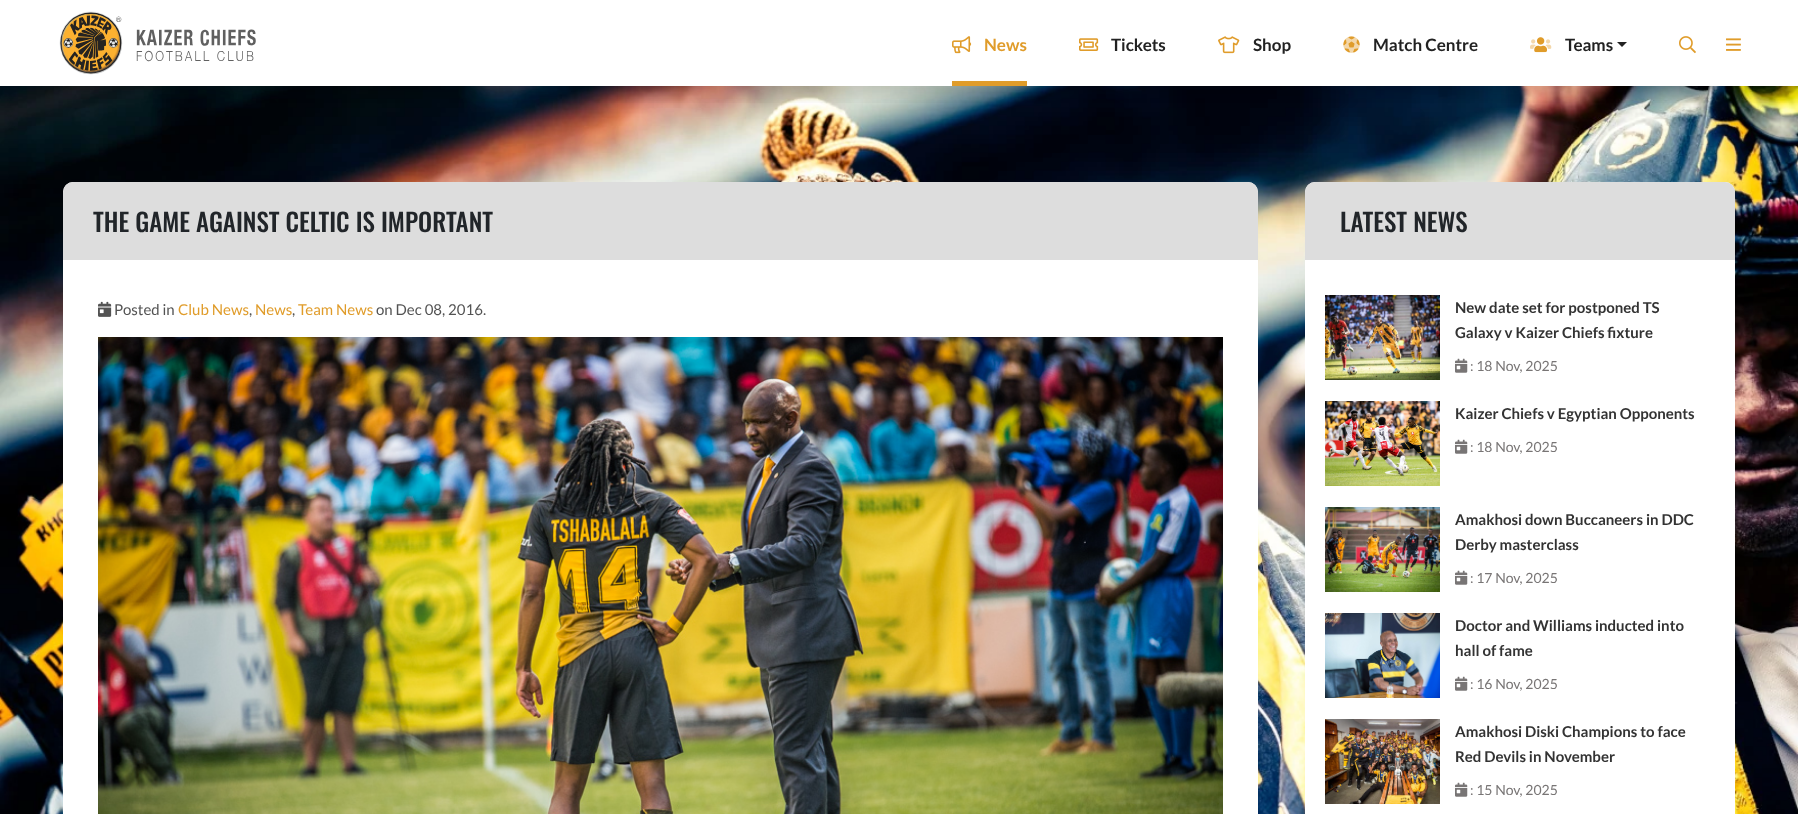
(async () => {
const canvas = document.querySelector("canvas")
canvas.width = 1798
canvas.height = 814
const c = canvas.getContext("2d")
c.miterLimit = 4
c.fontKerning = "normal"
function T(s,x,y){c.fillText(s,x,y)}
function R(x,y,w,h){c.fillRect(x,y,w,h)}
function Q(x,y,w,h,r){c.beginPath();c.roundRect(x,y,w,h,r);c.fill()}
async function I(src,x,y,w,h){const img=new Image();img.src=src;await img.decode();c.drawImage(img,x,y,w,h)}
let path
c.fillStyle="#fff"
R(0,0,1798,814)
await I("11.png",0,86,1798,728)
c.save()
c.beginPath()
c.rect(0,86,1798,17)
c.clip()
c.fillStyle="#00000026"
c.filter="blur(8px)"
c.beginPath()
c.rect(0,8,1798,86)
c.fill()
c.filter="none"
c.restore()
await I("1.png",59,11,197,64)
c.fillStyle="#e09c2a"
R(952,81,75,5)
await I("2.png",952,36,20,18)
c.font="bold 17px Lato"
T("News",984,51)
await I("3.png",1079,38,20,13)
c.fillStyle="#222"
T("Tickets",1111,51)
await I("4.png",1218,36,22,18)
T("Shop",1253,51)
await I("5.png",1343,36,17,17)
await I("6.png",1343,37,17,16)
T("Match Centre",1373,51)
await I("7.png",1534,37,13,16)
await I("8.png",1530,39,22,10)
T("Teams",1565,51)
path = new Path2D("M1617 42h10l-5 5z")
c.fill(path)
await I("9.png",1679,36,17,18)
await I("10.png",1726,38,15,13)
c.fillStyle="#fff"
Q(63,182,1195,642,10)
c.fillStyle="#ddd"
c.beginPath()
c.roundRect(63,182,1195,78,[10,10,0,0])
c.fill()
c.font="500 25px Oswald"
c.fillStyle="#212529"
T("THE GAME AGAINST CELTIC IS IMPORTANT",93,232)
await I("12.png",98,301,14,16)
c.font="15px Lato"
c.fillStyle="#535353"
T("Posted in",114,315)
c.fillStyle="#e09c2a"
T("Club News",178,315)
c.fillStyle="#535353"
T(",",249,315)
c.fillStyle="#e09c2a"
T("News",255,315)
c.fillStyle="#535353"
T(",",292,315)
c.fillStyle="#e09c2a"
T("Team News",298,315)
c.fillStyle="#535353"
T("on Dec 08, 2016.",376,315)
await I("13.png",98,337,1125,477)
c.fillStyle="#fff"
Q(1305,182,430,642,10)
c.fillStyle="#ddd"
c.beginPath()
c.roundRect(1305,182,430,78,[10,10,0,0])
c.fill()
c.font="500 25px Oswald"
c.fillStyle="#212529"
T("LATEST NEWS",1340,232)
await I("14.png",1325,295,115,85)
c.font="bold 15px Lato"
c.fillStyle="#333"
T("New date set for postponed TS",1455,313)
T("Galaxy v Kaizer Chiefs fixture",1455,338)
await I("15.png",1455,358,13,15)
c.font="14px Lato"
c.fillStyle="#787575"
T(": 18 Nov, 2025",1470,371)
await I("16.png",1325,401,115,85)
c.font="bold 15px Lato"
c.fillStyle="#333"
T("Kaizer Chiefs v Egyptian Opponents",1455,419)
await I("15.png",1455,439,13,15)
c.font="14px Lato"
c.fillStyle="#787575"
T(": 18 Nov, 2025",1470,452)
await I("17.png",1325,507,115,85)
c.font="bold 15px Lato"
c.fillStyle="#333"
T("Amakhosi down Buccaneers in DDC",1455,525)
T("Derby masterclass",1455,550)
await I("15.png",1455,570,13,15)
c.font="14px Lato"
c.fillStyle="#787575"
T(": 17 Nov, 2025",1470,583)
await I("18.png",1325,613,115,85)
c.font="bold 15px Lato"
c.fillStyle="#333"
T("Doctor and Williams inducted into",1455,631)
T("hall of fame",1455,656)
await I("15.png",1455,676,13,15)
c.font="14px Lato"
c.fillStyle="#787575"
T(": 16 Nov, 2025",1470,689)
await I("19.png",1325,719,115,85)
c.font="bold 15px Lato"
c.fillStyle="#333"
T("Amakhosi Diski Champions to face",1455,737)
T("Red Devils in November",1455,762)
await I("15.png",1455,782,13,15)
c.font="14px Lato"
c.fillStyle="#787575"
T(": 15 Nov, 2025",1470,795)
})()
